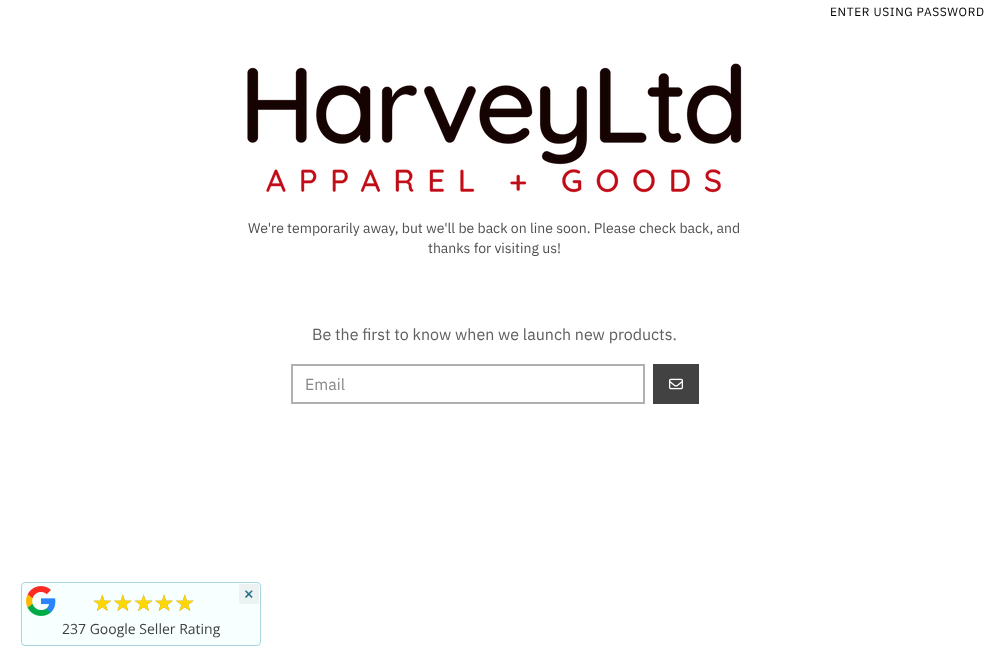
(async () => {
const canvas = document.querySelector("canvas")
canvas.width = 989
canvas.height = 671
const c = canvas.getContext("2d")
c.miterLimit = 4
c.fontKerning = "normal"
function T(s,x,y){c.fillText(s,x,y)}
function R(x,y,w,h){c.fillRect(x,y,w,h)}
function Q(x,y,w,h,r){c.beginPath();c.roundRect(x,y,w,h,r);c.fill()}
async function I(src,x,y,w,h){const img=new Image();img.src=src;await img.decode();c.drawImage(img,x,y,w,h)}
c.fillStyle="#fff"
R(0,0,989,671)
c.letterSpacing="0.6px"
c.font="12px IBM Plex Sans"
c.fillStyle="#000"
T("ENTER USING PASSWORD",830,16)
await I("1.png",247,63,495,130)
c.letterSpacing="0px"
c.font="14px IBM Plex Sans"
c.fillStyle="#4f4f4f"
T("We're temporarily away, but we'll be back on line soon. Please check back, and",248,233)
T("thanks for visiting us!",428,253)
c.font="16px IBM Plex Sans"
c.fillStyle="#606060"
T("Be the first to know when we launch new products.",312,340)
c.strokeStyle="#b0b0b0"
c.lineWidth=2
c.strokeRect(292,365,352,38)
c.fillStyle="#888"
T("Email",305,390)
c.fillStyle="#424242"
R(653,364,46,40)
await I("2.png",669,378,14,12)
c.fillStyle="#f8ffff"
Q(20,581,242,66,5)
c.beginPath()
c.roundRect(21.5,582.5,239,63,3.5)
c.strokeStyle="#a9d5de"
c.lineWidth=1
c.stroke()
await I("3.png",26,586,30,30)
c.font="23px DejaVu Sans"
c.fillStyle="#808080"
T("★★★★★",92,611)
c.fillStyle="#ffd700"
T("★★★★★",92,611)
c.font="14px Open Sans"
c.fillStyle="#404040"
T("237 Google Seller Rating",62,634)
c.fillStyle="#ecf2f2"
Q(239,584,20,20,2)
c.font="bold 16px Open Sans"
c.fillStyle="#276f86"
T("×",244,600)
})()
